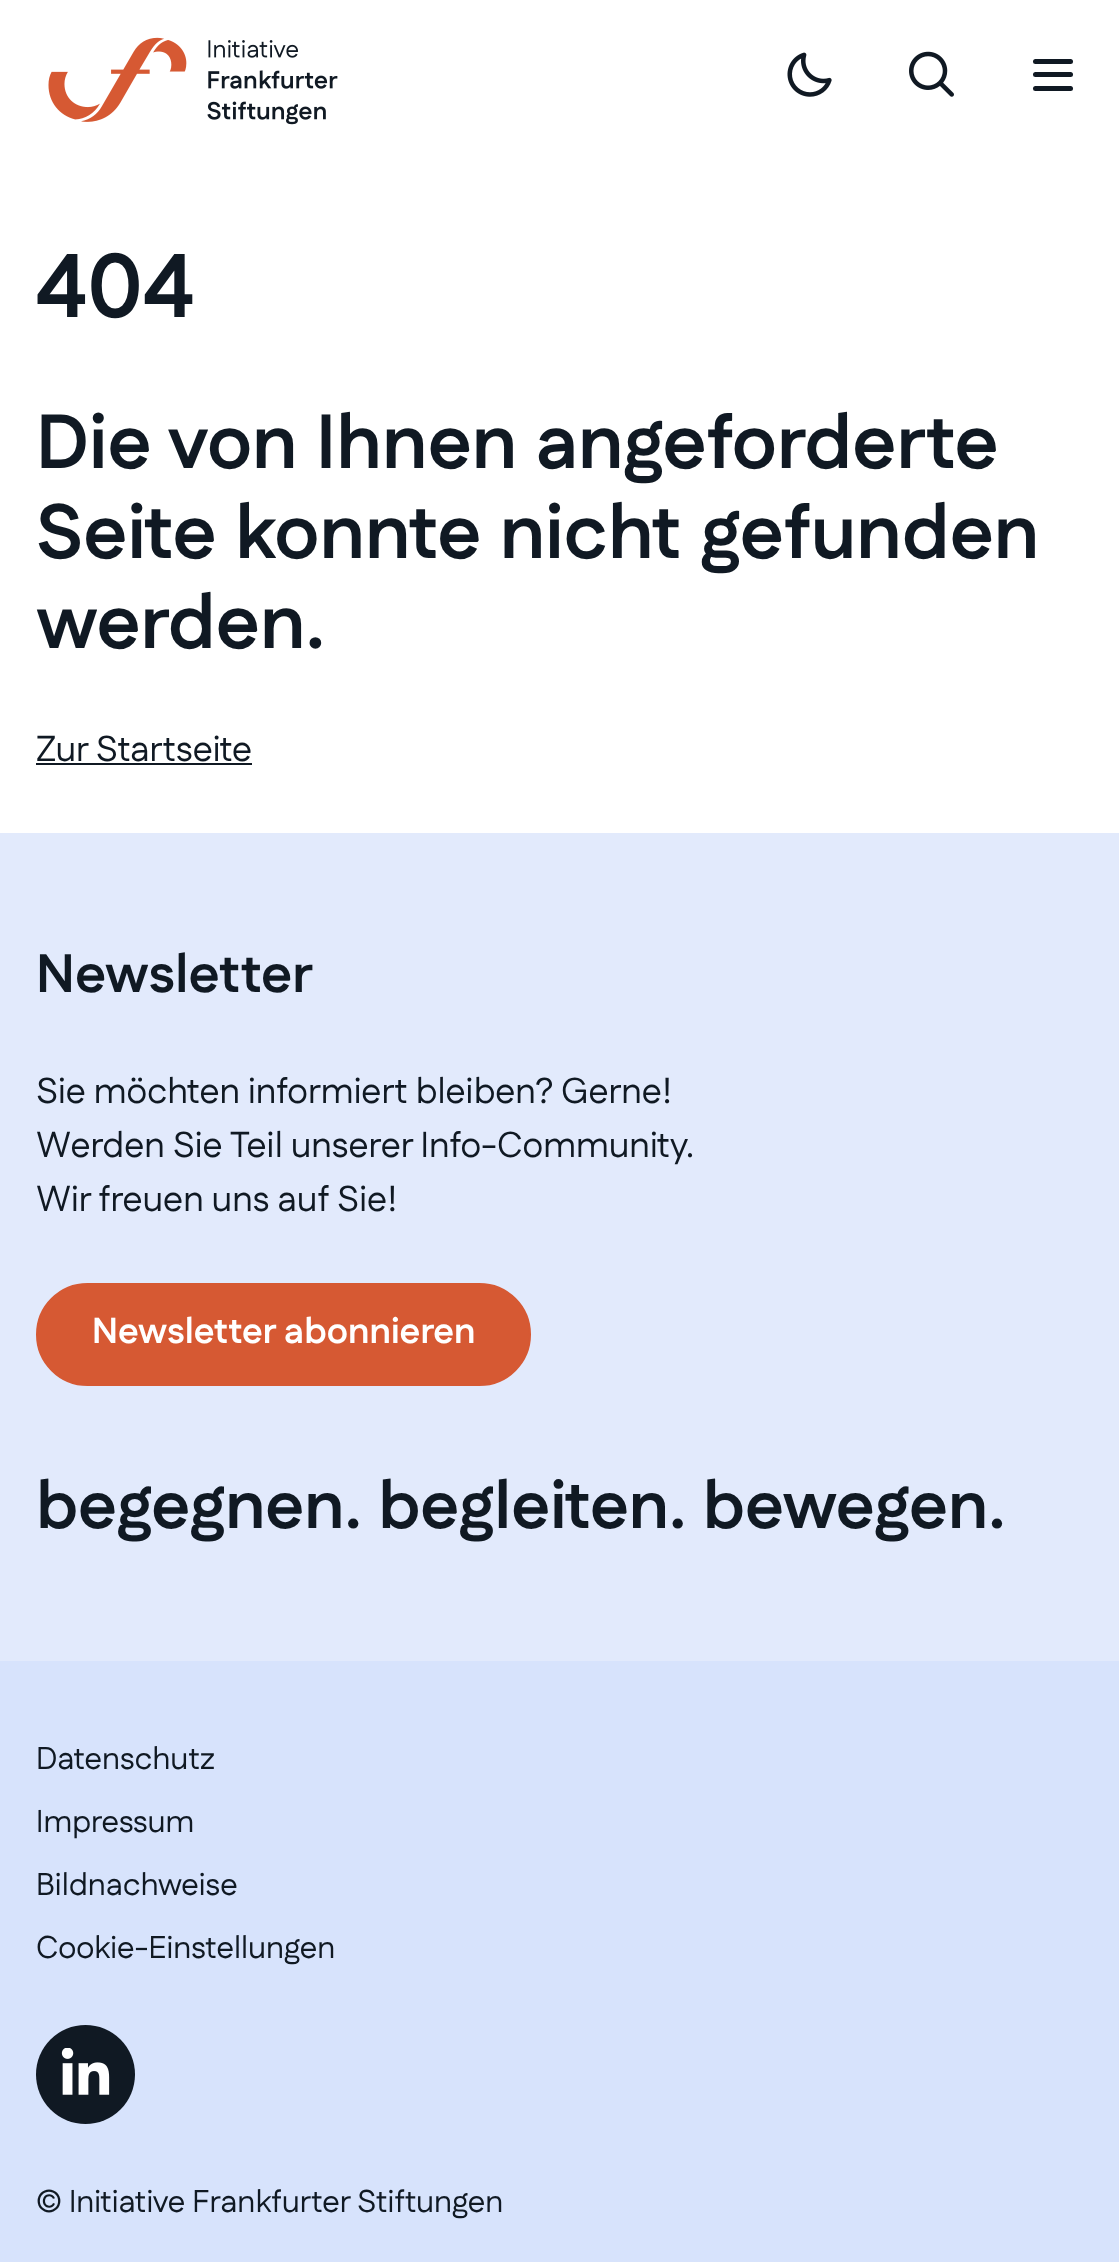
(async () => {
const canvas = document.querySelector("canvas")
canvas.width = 1119
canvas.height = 2262
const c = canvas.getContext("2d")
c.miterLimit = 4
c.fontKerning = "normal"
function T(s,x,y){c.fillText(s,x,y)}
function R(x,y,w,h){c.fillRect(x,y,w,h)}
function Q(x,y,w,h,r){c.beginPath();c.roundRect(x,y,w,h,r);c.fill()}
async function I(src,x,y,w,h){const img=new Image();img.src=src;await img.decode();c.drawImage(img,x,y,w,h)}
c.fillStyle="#fff"
R(0,0,1119,2262)
await I("1.png",48,37,290,88)
await I("2.png",787,52,45,45)
await I("3.png",909,51,45,46)
c.fillStyle="#101923"
Q(1033,59,40,5,2.5)
Q(1033,72,40,5,2.5)
Q(1033,86,40,5,2.5)
c.font="bold 90px Fustat"
T("404",36,317)
c.font="bold 76.5px Fustat"
T("Die von Ihnen angeforderte",36,468)
T("Seite konnte nicht gefunden",36,558)
T("werden.",36,648)
c.font="36px Fustat"
T("Zur Startseite",36,761)
R(36,763,216,2)
c.fillStyle="#e2eafc"
R(0,833,1119,828)
c.font="bold 54px Fustat"
c.fillStyle="#101923"
T("Newsletter",36,992)
c.font="36px Fustat"
T("Sie möchten informiert bleiben? Gerne!",36,1103)
T("Werden Sie Teil unserer Info-Community.",36,1157)
T("Wir freuen uns auf Sie!",36,1211)
c.fillStyle="#d65933"
c.beginPath()
c.roundRect(37,1284,493,101,50.5)
c.fill()
c.strokeStyle="#d65933"
c.lineWidth=2
c.stroke()
c.font="bold 36px Fustat"
c.fillStyle="#fff"
T("Newsletter abonnieren",92,1343)
c.font="bold 67.5px Fustat"
c.fillStyle="#101923"
T("begegnen. begleiten. bewegen.",36,1528)
c.fillStyle="#d7e3fc"
R(0,1661,1119,601)
c.font="31.5px Fustat"
c.fillStyle="#101923"
T("Datenschutz",36,1769)
T("Impressum",36,1832)
T("Bildnachweise",36,1895)
T("Cookie-Einstellungen",36,1958)
c.beginPath()
c.arc(85.5,2074.5,49.5,0,7)
c.fill()
await I("4.png",61,2048,49,47)
T("© Initiative Frankfurter Stiftungen",36,2212)
})()
